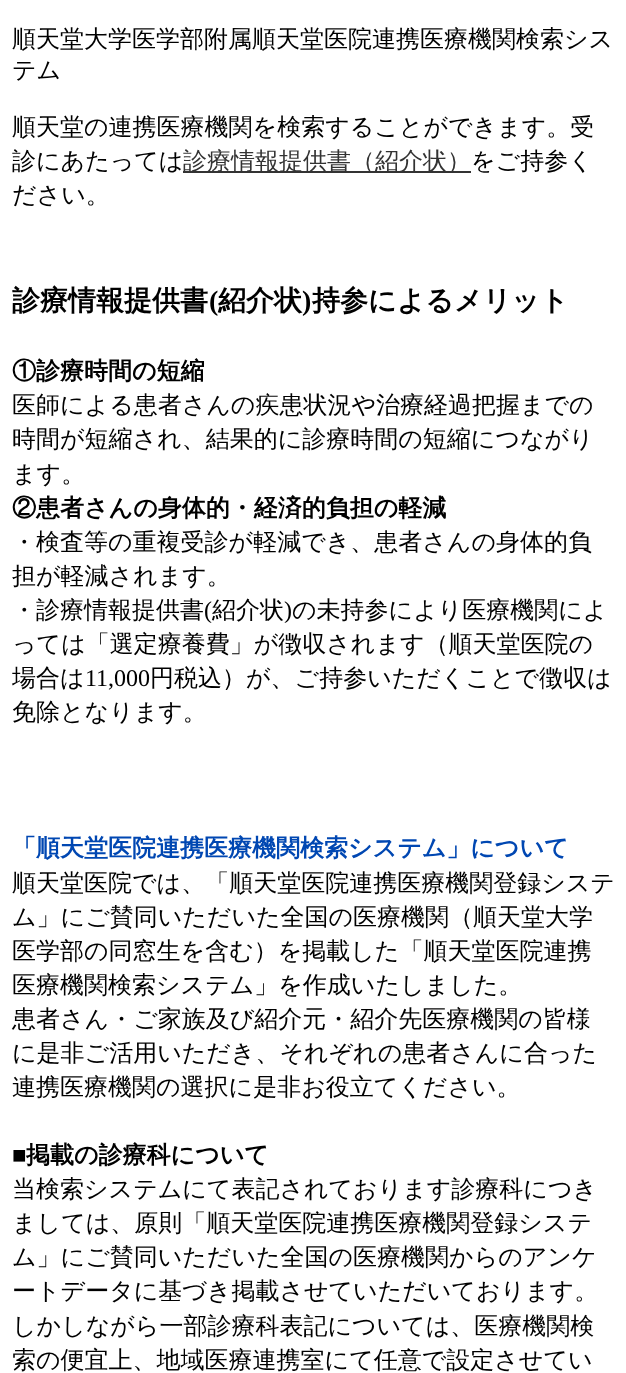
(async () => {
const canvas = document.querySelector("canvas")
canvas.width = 626
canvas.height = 1373
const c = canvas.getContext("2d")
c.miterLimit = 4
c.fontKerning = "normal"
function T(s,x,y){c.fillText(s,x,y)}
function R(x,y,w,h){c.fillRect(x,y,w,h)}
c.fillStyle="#fff"
R(0,0,626,1373)
c.font="500 24px WenQuanYi Zen Hei"
c.fillStyle="#000"
T("順天堂大学医学部附属順天堂医院連携医療機関検索シス",12,47)
T("テム",12,78)
T("順天堂の連携医療機関を検索することができます。受",12,135)
T("診にあたっては",12,169)
c.fillStyle="#333"
R(183,171,288,2)
T("診療情報提供書（紹介状）",183,169)
c.fillStyle="#000"
T("をご持参く",471,169)
T("ださい。",12,203)
c.font="bold 28px WenQuanYi Zen Hei"
T("診療情報提供書",12,310)
c.font="bold 28px Liberation Serif"
T("(",209,310)
c.font="bold 28px WenQuanYi Zen Hei"
T("紹介状",218,310)
c.font="bold 28px Liberation Serif"
T(")",302,310)
c.font="bold 28px WenQuanYi Zen Hei"
T("持参によるメリット",312,310)
c.font="bold 24px WenQuanYi Zen Hei"
T("①診療時間の短縮",12,379)
c.font="500 24px WenQuanYi Zen Hei"
T("医師による患者さんの疾患状況や治療経過把握までの",12,413)
T("時間が短縮され、結果的に診療時間の短縮につながり",12,447)
T("ます。",12,482)
c.font="bold 24px WenQuanYi Zen Hei"
T("②患者さんの身体的・経済的負担の軽減",12,516)
c.font="500 24px WenQuanYi Zen Hei"
T("・検査等の重複受診が軽減でき、患者さんの身体的負",12,550)
T("担が軽減されます。",12,584)
T("・診療情報提供書",12,618)
c.font="24px Liberation Serif"
T("(",204,618)
c.font="500 24px WenQuanYi Zen Hei"
T("紹介状",212,618)
c.font="24px Liberation Serif"
T(")",284,618)
c.font="500 24px WenQuanYi Zen Hei"
T("の未持参により医療機関によ",292,618)
T("っては「選定療養費」が徴収されます（順天堂医院の",12,652)
T("場合は",12,686)
c.font="24px Liberation Serif"
T("11,000",85,686)
c.font="500 24px WenQuanYi Zen Hei"
T("円税込）が、ご持参いただくことで徴収は",150,686)
T("免除となります。",12,720)
c.font="bold 24px WenQuanYi Zen Hei"
c.fillStyle="#0047b2"
T("「順天堂医院連携医療機関検索システム」について",12,856)
c.font="500 24px WenQuanYi Zen Hei"
c.fillStyle="#000"
T("順天堂医院では、「順天堂医院連携医療機関登録システ",12,891)
T("ム」にご賛同いただいた全国の医療機関（順天堂大学",12,925)
T("医学部の同窓生を含む）を掲載した「順天堂医院連携",12,959)
T("医療機関検索システム」を作成いたしました。",12,993)
T("患者さん・ご家族及び紹介元・紹介先医療機関の皆様",12,1027)
T("に是非ご活用いただき、それぞれの患者さんに合った",12,1061)
T("連携医療機関の選択に是非お役立てください。",12,1095)
c.font="bold 24px Liberation Serif"
T("■",12,1163)
c.font="bold 24px WenQuanYi Zen Hei"
T("掲載の診療科について",26,1163)
c.font="500 24px WenQuanYi Zen Hei"
T("当検索システムにて表記されております診療科につき",12,1197)
T("ましては、原則「順天堂医院連携医療機関登録システ",12,1231)
T("ム」にご賛同いただいた全国の医療機関からのアンケ",12,1265)
T("ートデータに基づき掲載させていただいております。",12,1299)
T("しかしながら一部診療科表記については、医療機関検",12,1334)
T("索の便宜上、地域医療連携室にて任意で設定させてい",12,1368)
})()
